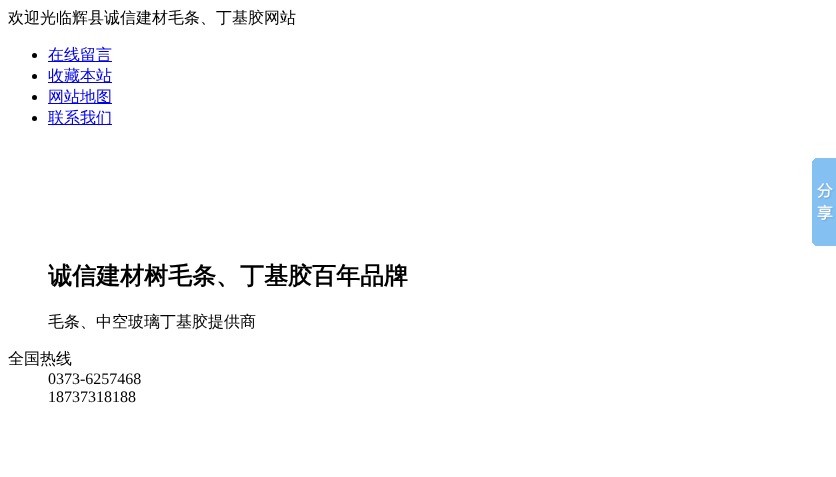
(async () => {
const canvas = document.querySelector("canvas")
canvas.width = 836
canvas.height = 477
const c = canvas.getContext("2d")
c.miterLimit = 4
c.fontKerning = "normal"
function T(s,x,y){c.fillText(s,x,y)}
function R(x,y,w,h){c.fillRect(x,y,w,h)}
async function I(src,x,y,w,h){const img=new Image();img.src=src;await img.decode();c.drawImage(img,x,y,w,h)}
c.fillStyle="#fff"
R(0,0,836,477)
c.font="500 16px WenQuanYi Zen Hei"
c.fillStyle="#000"
T("欢迎光临辉县诚信建材毛条、丁基胶网站",8,23)
c.beginPath()
c.arc(34.5,55.5,2.5,0,7)
c.fill()
c.fillStyle="#00e"
R(48,61,64,1)
T("在线留言",48,60)
c.fillStyle="#000"
c.beginPath()
c.arc(34.5,76.5,2.5,0,7)
c.fill()
c.fillStyle="#00e"
R(48,82,64,1)
T("收藏本站",48,81)
c.fillStyle="#000"
c.beginPath()
c.arc(34.5,97.5,2.5,0,7)
c.fill()
c.fillStyle="#00e"
R(48,103,64,1)
T("网站地图",48,102)
c.fillStyle="#000"
c.beginPath()
c.arc(34.5,118.5,2.5,0,7)
c.fill()
c.fillStyle="#00e"
R(48,124,64,1)
T("联系我们",48,123)
await I("1.png",812,158,24,88)
c.font="bold 24px WenQuanYi Zen Hei"
c.fillStyle="#000"
T("诚信建材树毛条、丁基胶百年品牌",48,284)
c.font="500 16px WenQuanYi Zen Hei"
T("毛条、中空玻璃丁基胶提供商",48,327)
T("全国热线",8,364)
c.font="16px Liberation Serif"
T("0373-6257468",48,384)
T("18737318188",48,402)
})()
